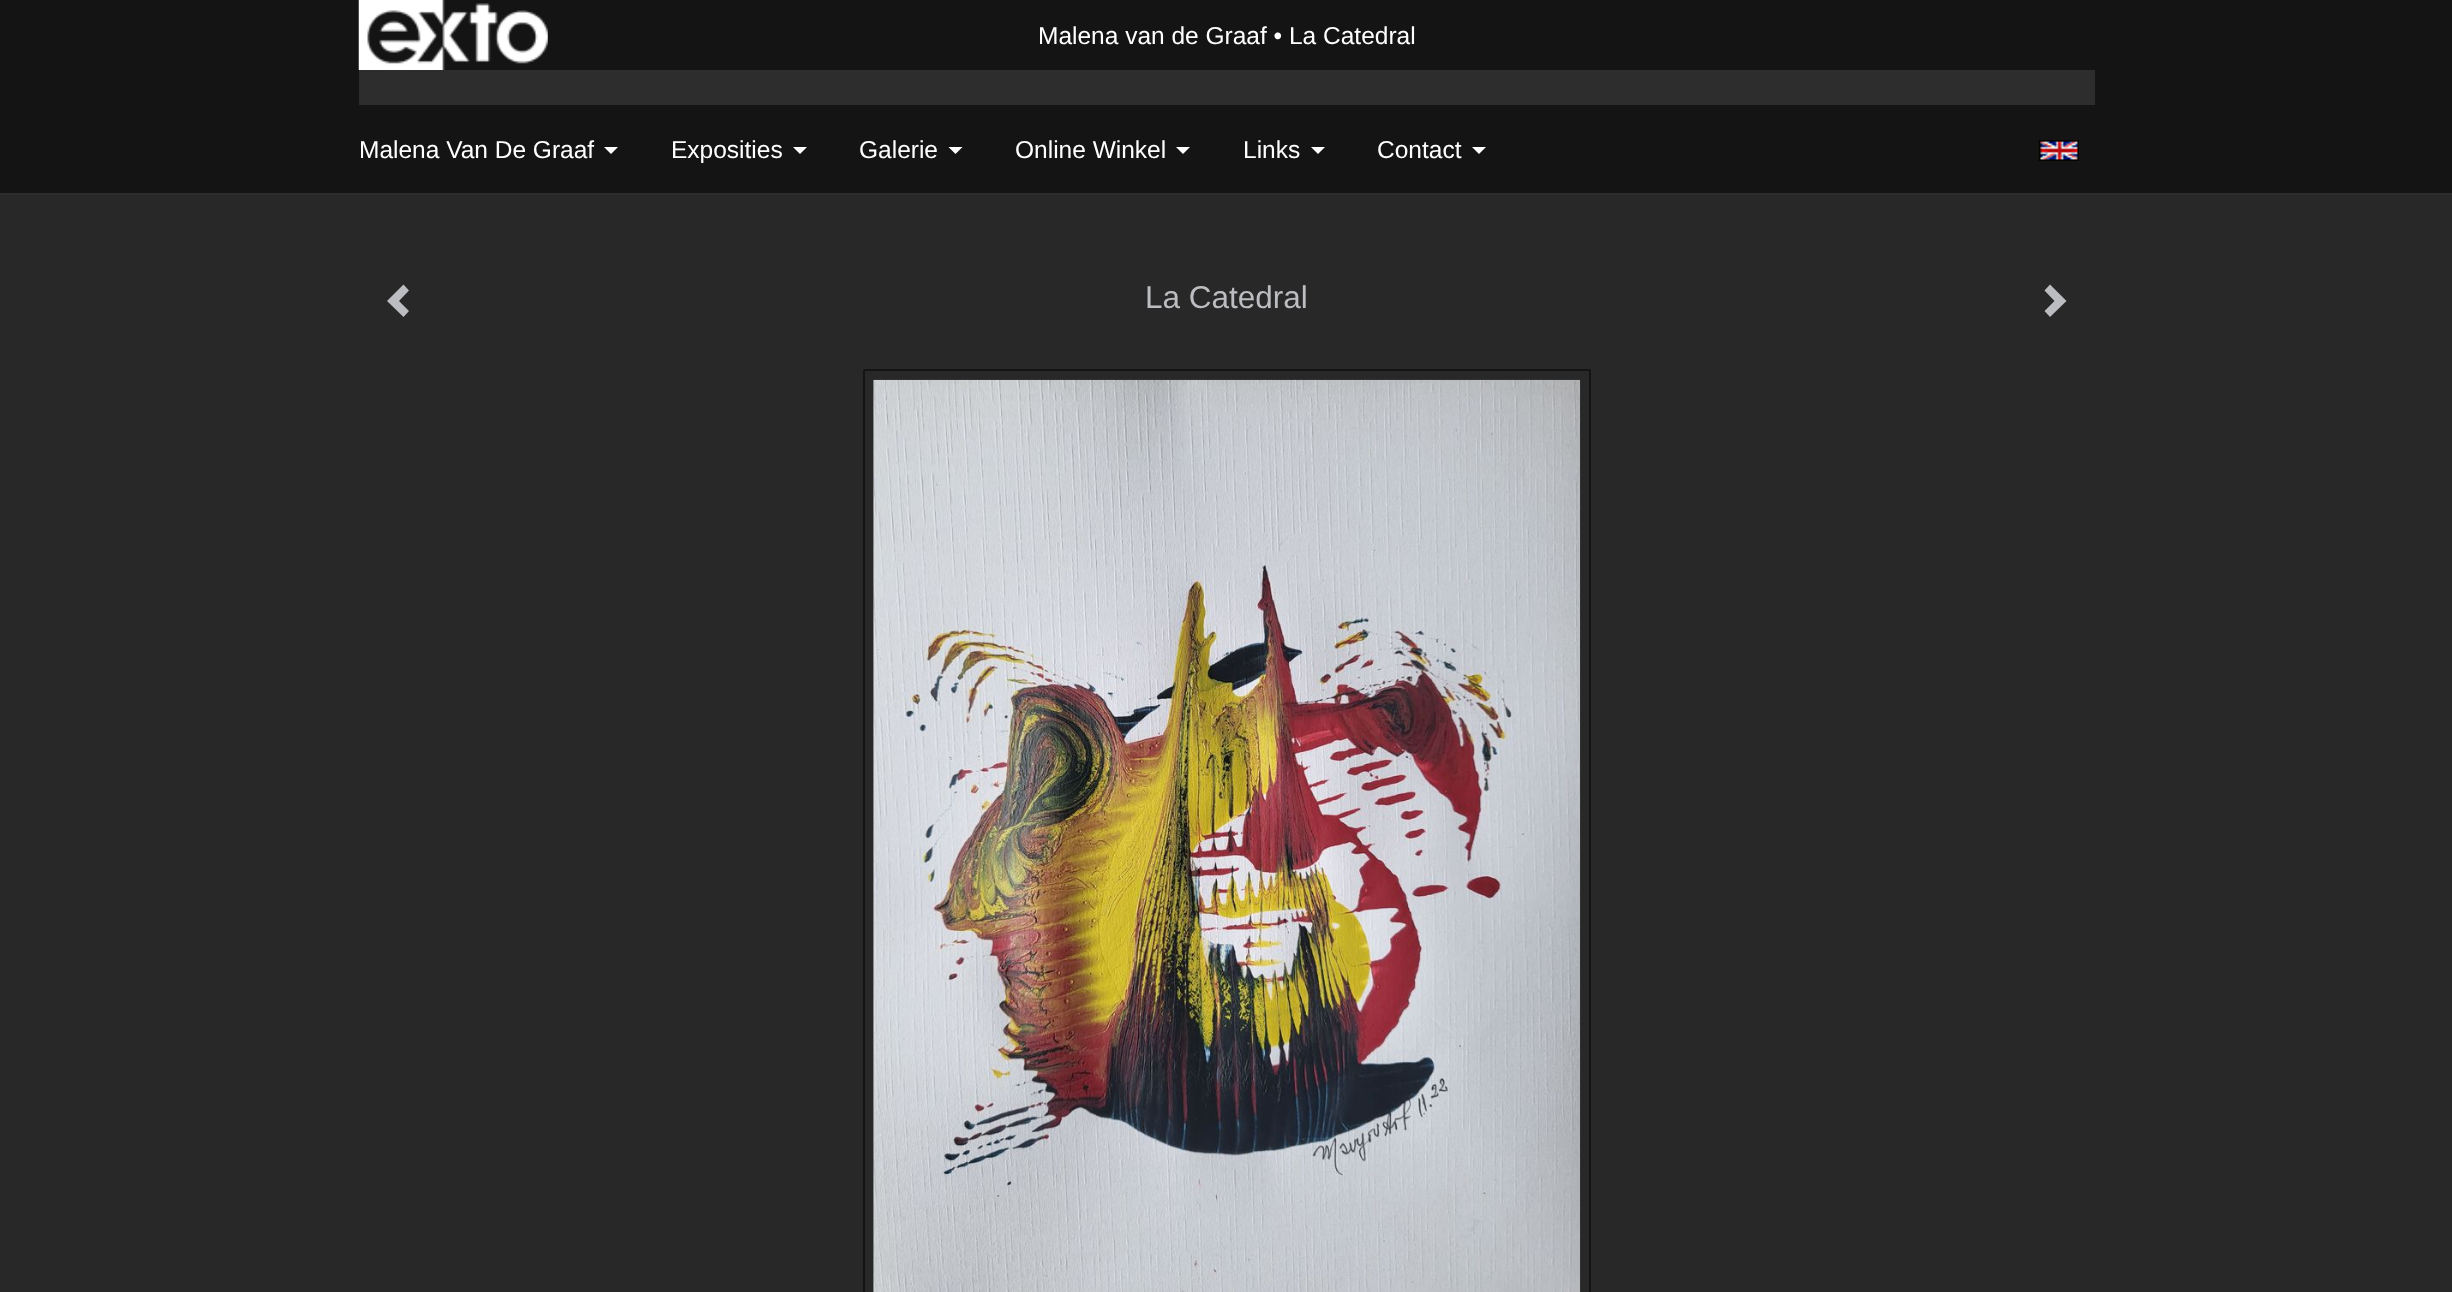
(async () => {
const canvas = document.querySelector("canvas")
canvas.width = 2452
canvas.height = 1292
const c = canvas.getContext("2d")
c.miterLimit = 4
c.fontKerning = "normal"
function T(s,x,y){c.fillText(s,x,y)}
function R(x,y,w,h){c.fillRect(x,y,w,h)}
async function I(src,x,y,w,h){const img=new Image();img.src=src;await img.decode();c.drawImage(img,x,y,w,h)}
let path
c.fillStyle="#282828"
R(0,0,2452,1292)
c.fillStyle="#141414"
R(0,0,2452,193)
await I("1.png",358,0,190,70)
c.font="24.5px Liberation Sans"
c.fillStyle="#fff"
T("Malena van de Graaf • La Catedral",1038,44)
c.fillStyle="#2d2d2d"
R(359,70,1736,35)
R(0,193,2452,2)
c.fillStyle="#fff"
T("Malena Van De Graaf",359,158)
path = new Path2D("M604 147h14l-7 7z")
c.fill(path)
T("Exposities",671,158)
path = new Path2D("M793 147h14l-7 7z")
c.fill(path)
T("Galerie",859,158)
path = new Path2D("M948.5 147h14l-7 7z")
c.fill(path)
T("Online Winkel",1015,158)
path = new Path2D("M1176 147h14l-7 7z")
c.fill(path)
T("Links",1243,158)
path = new Path2D("M1311 147h14l-7 7z")
c.fill(path)
T("Contact",1377,158)
path = new Path2D("M1472 147h14l-7 7z")
c.fill(path)
await I("2.png",2038,140,41,21)
c.fillStyle="#bcbdc0"
path = new Path2D("M409 290.5l-10 10.5l10 10l-5.5 6l-16.5-16l16.5-16.5z")
c.fill(path)
c.font="31.5px Liberation Sans"
T("La Catedral",1145,308)
path = new Path2D("M2066.5 301l-16.5 16l-5.5-6l10-10l-10-10.5l5.5-6z")
c.fill(path)
c.beginPath()
c.roundRect(864,370,726,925,1)
c.strokeStyle="#141414"
c.lineWidth=2
c.stroke()
await I("3.png",873,379,708,913)
})()
